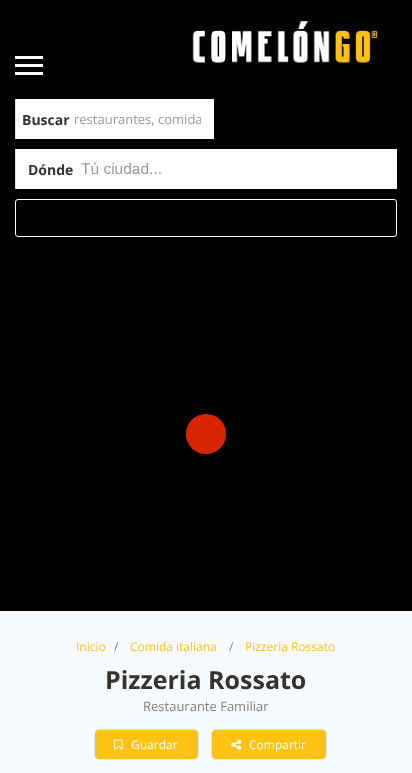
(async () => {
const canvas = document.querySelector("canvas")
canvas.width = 412
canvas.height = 773
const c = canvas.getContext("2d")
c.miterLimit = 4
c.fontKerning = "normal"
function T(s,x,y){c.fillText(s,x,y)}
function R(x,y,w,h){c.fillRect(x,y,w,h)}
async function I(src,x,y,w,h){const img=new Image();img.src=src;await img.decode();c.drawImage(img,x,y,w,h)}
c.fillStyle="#f7fbfe"
R(0,0,412,773)
c.fillStyle="#000"
R(0,0,412,611)
await I("1.png",192,21,186,42)
c.fillStyle="#fff"
R(15,56,28,3)
R(15,64,28,3)
R(15,72,28,3)
R(16,99,198,40)
c.fillStyle="#dedede"
R(15,99,1,40)
c.font="bold 14px Open Sans"
c.fillStyle="#333"
T("Buscar",22,125)
c.save()
c.beginPath()
c.rect(74,110,127,18)
c.clip()
c.font="13px Open Sans"
c.fillStyle="#999"
T("restaurantes, comida",74,124)
c.restore()
c.fillStyle="#fff"
R(16,149,381,40)
c.fillStyle="#dedede"
R(15,149,1,40)
c.fillStyle="#333"
T("Dónde",28,175)
c.font="15.5px Liberation Sans"
c.fillStyle="#999"
T("Tú ciudad...",81,174)
c.beginPath()
c.roundRect(15.5,199.5,381,37,2.5)
c.strokeStyle="#fff"
c.stroke()
c.fillStyle="#991b00"
c.beginPath()
c.arc(206,434,20,0,7)
c.fill()
c.fillStyle="#ff2d0099"
c.beginPath()
c.arc(206,434,20,0,7)
c.fill()
c.font="12px Open Sans"
c.fillStyle="#ffc313"
T("Inicio",76,651)
c.fillStyle="#7f7f7f"
T("/",114,651)
c.fillStyle="#ffc313"
T("Comida italiana",130,651)
c.fillStyle="#7f7f7f"
T("/",229,651)
c.fillStyle="#ffc313"
T("Pizzeria Rossato",245,651)
c.font="bold 25px Open Sans"
c.fillStyle="#333"
T("Pizzeria Rossato",105,689)
c.font="13px Open Sans"
c.fillStyle="#7f7f7f"
T("Restaurante Familiar",143,711)
c.fillStyle="#ffc313"
c.beginPath()
c.roundRect(94.5,729.5,104,30,4.5)
c.fill()
c.strokeStyle="#dbe7ef"
c.stroke()
await I("2.png",114,739,9,11)
c.font="12px Open Sans"
c.fillStyle="#fff"
T("Guardar",131,749)
c.fillStyle="#ffc313"
c.beginPath()
c.roundRect(211.5,729.5,115,30,4.5)
c.fill()
c.stroke()
await I("3.png",231,739,11,11)
c.fillStyle="#fff"
T("Compartir",249,749)
})()
